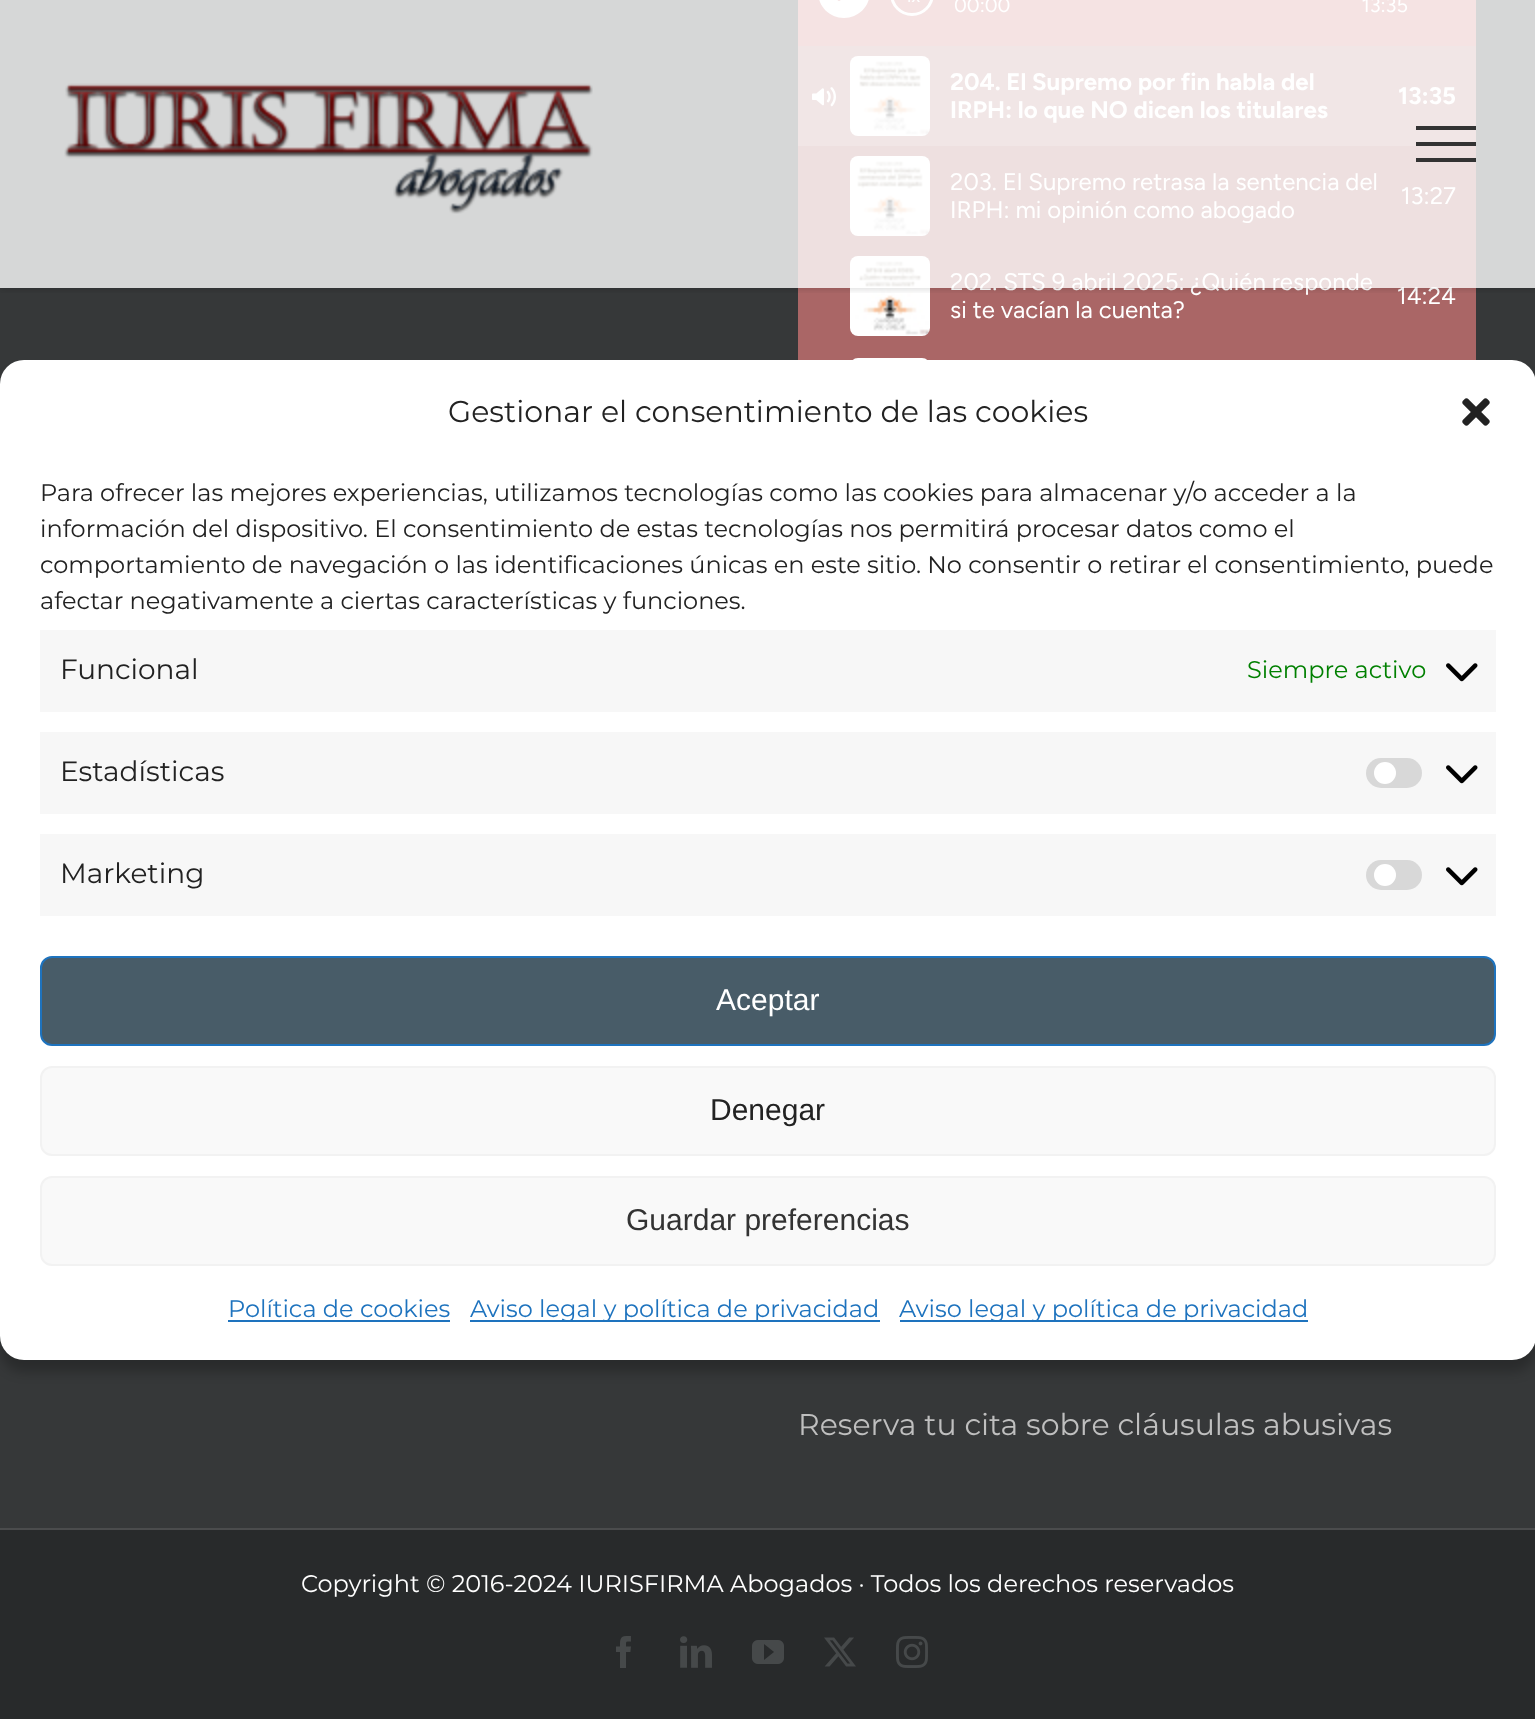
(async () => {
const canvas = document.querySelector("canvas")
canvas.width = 1535
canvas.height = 1719
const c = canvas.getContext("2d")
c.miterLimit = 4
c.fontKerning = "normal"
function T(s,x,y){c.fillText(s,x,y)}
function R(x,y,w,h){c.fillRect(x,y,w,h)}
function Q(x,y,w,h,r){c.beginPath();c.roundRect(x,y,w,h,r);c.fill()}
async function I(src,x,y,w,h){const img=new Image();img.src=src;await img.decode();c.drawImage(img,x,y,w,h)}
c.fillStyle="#363839"
R(0,0,1535,1719)
await I("4.png",798,0,678,360)
c.fillStyle="#0000003b"
c.filter="blur(6px)"
c.beginPath()
c.roundRect(0,372,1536,1000,24)
c.fill()
c.filter="none"
c.fillStyle="#fff"
Q(0,360,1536,1000,24)
c.font="30px Montserrat"
c.fillStyle="#222"
T("Gestionar el consentimiento de las cookies",448,422)
await I("1.png",1462,398,28,28)
c.font="24px Montserrat"
T("Para ofrecer las mejores experiencias, utilizamos tecnologías como las cookies para almacenar y/o acceder a la",40,501)
T("información del dispositivo. El consentimiento de estas tecnologías nos permitirá procesar datos como el",40,537)
T("comportamiento de navegación o las identificaciones únicas en este sitio. No consentir o retirar el consentimiento, puede",40,573)
T("afectar negativamente a ciertas características y funciones.",40,609)
c.fillStyle="#f7f7f7"
R(40,630,1456,82)
c.font="28px Montserrat"
c.fillStyle="#222"
T("Funcional",60,679)
c.font="24px Montserrat"
c.fillStyle="#008000"
T("Siempre activo",1247,678)
await I("2.png",1446,663,32,19)
c.fillStyle="#f7f7f7"
R(40,732,1456,82)
c.font="28px Montserrat"
c.fillStyle="#222"
T("Estadísticas",60,781)
c.fillStyle="#d8d8d8"
Q(1366,758,56,30,15)
c.fillStyle="#fff"
c.beginPath()
c.arc(1385,773,11,0,7)
c.fill()
await I("2.png",1446,765,32,19)
c.fillStyle="#f7f7f7"
R(40,834,1456,82)
c.fillStyle="#222"
T("Marketing",60,883)
c.fillStyle="#d8d8d8"
Q(1366,860,56,30,15)
c.fillStyle="#fff"
c.beginPath()
c.arc(1385,875,11,0,7)
c.fill()
await I("2.png",1446,867,32,19)
c.fillStyle="#485c68"
c.beginPath()
c.roundRect(41,957,1454,88,11)
c.fill()
c.strokeStyle="#1e73be"
c.lineWidth=2
c.stroke()
c.font="30px Liberation Sans"
c.fillStyle="#fff"
T("Aceptar",716,1010)
c.fillStyle="#f9f9f9"
c.beginPath()
c.roundRect(41,1067,1454,88,11)
c.fill()
c.strokeStyle="#f2f2f2"
c.stroke()
c.fillStyle="#222"
T("Denegar",710,1120)
c.fillStyle="#f9f9f9"
c.beginPath()
c.roundRect(41,1177,1454,88,11)
c.fill()
c.stroke()
c.fillStyle="#333"
T("Guardar preferencias",626,1230)
c.font="24px Montserrat"
c.fillStyle="#1e73be"
T("Política de cookies",228,1317)
R(228,1320,222,2)
R(470,1320,410,2)
T("Aviso legal y política de privacidad",470,1317)
R(900,1320,408,2)
T("Aviso legal y política de privacidad",899,1317)
c.save()
c.beginPath()
c.rect(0,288,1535,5)
c.clip()
c.fillStyle="#0000001f"
c.filter="blur(3px)"
c.beginPath()
c.rect(0,2,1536,288)
c.fill()
c.filter="none"
c.restore()
c.fillStyle="#ffffffcc"
R(0,0,1535,288)
await I("3.png",64,83,529,131)
c.fillStyle="#333"
R(1416,126,60,4)
R(1416,142,60,4)
R(1416,158,60,4)
c.font="30px Montserrat"
c.fillStyle="#bfbfbf"
T("Reserva tu cita sobre cláusulas abusivas",798,1435)
c.fillStyle="#282a2b"
R(0,1530,1535,189)
c.fillStyle="#4b4c4d"
R(0,1528,1535,2)
c.font="24px Montserrat"
c.fillStyle="#fff"
T("Copyright © 2016-2024 IURISFIRMA Abogados · Todos los derechos reservados",301,1592)
await I("5.png",616,1636,15,32)
await I("6.png",680,1636,32,32)
await I("7.png",752,1640,32,24)
await I("8.png",824,1637,32,30)
await I("9.png",896,1636,32,32)
})()
